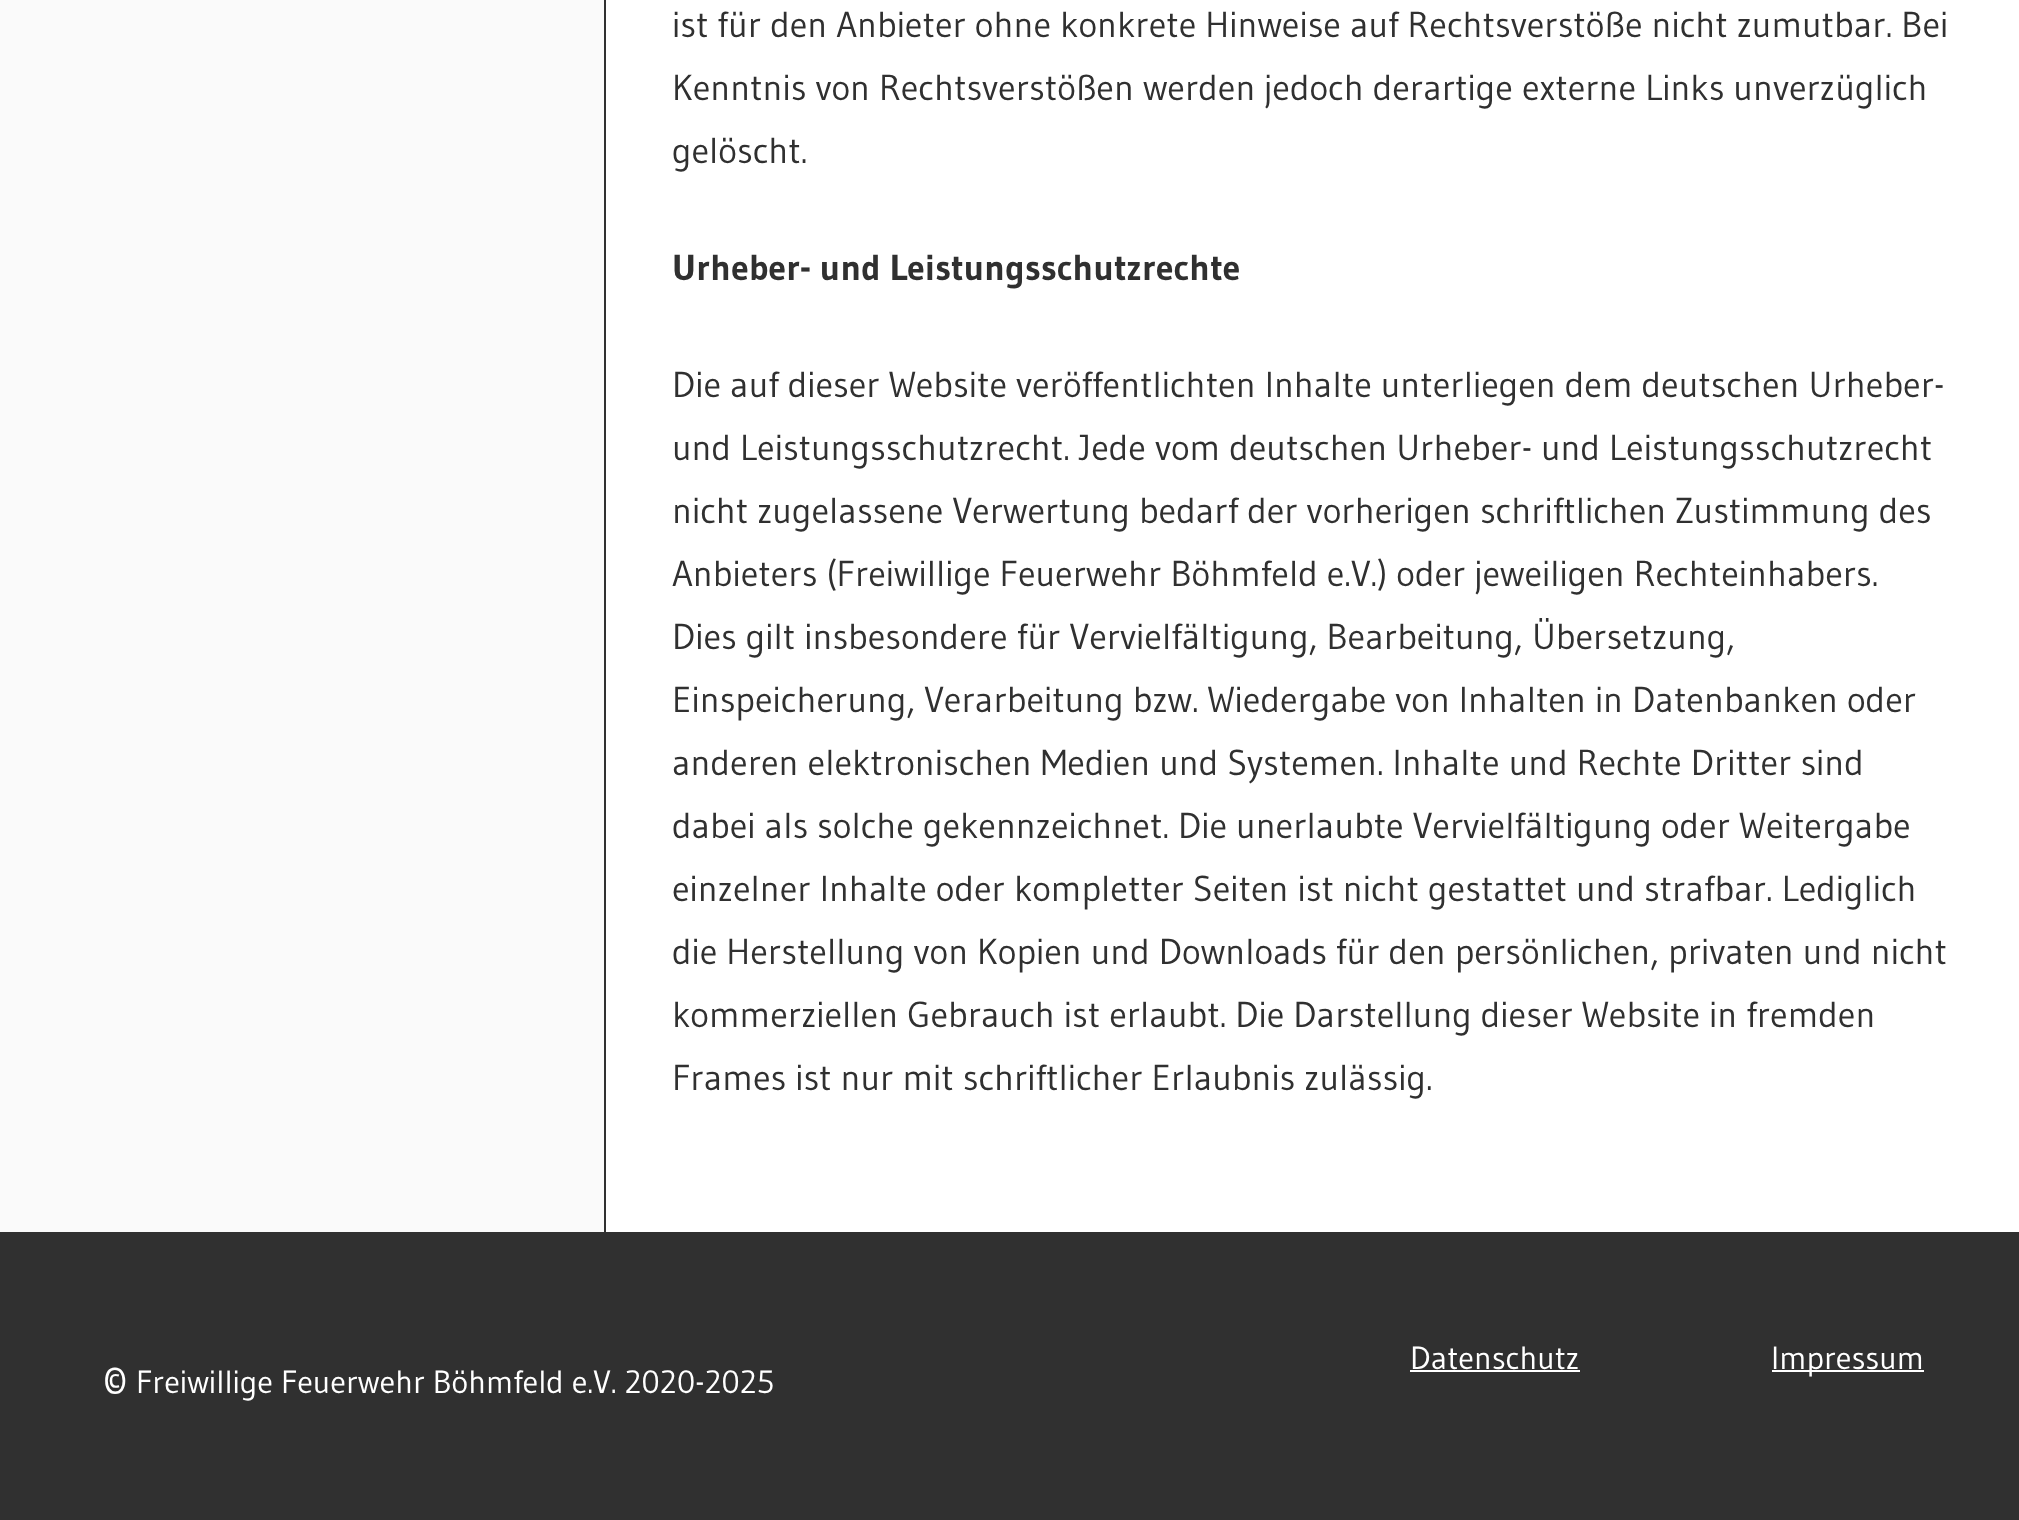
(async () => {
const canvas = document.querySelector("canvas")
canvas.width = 2019
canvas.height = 1520
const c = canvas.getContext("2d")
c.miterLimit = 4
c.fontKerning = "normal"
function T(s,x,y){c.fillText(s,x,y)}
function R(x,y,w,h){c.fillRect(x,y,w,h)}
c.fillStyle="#fff"
R(0,0,2019,1520)
c.fillStyle="#fafafa"
R(0,0,604,1232)
c.fillStyle="#303030"
R(604,0,2,1232)
c.font="36px Gudea"
T("ist für den Anbieter ohne konkrete Hinweise auf Rechtsverstöße nicht zumutbar. Bei",672,37)
T("Kenntnis von Rechtsverstößen werden jedoch derartige externe Links unverzüglich",672,100)
T("gelöscht.",672,163)
c.font="bold 36px Gudea"
T("Urheber- und Leistungsschutzrechte",672,280)
c.font="36px Gudea"
T("Die auf dieser Website veröffentlichten Inhalte unterliegen dem deutschen Urheber-",672,397)
T("und Leistungsschutzrecht. Jede vom deutschen Urheber- und Leistungsschutzrecht",672,460)
T("nicht zugelassene Verwertung bedarf der vorherigen schriftlichen Zustimmung des",672,523)
T("Anbieters (Freiwillige Feuerwehr Böhmfeld e.V.) oder jeweiligen Rechteinhabers.",672,586)
T("Dies gilt insbesondere für Vervielfältigung, Bearbeitung, Übersetzung,",672,649)
T("Einspeicherung, Verarbeitung bzw. Wiedergabe von Inhalten in Datenbanken oder",672,712)
T("anderen elektronischen Medien und Systemen. Inhalte und Rechte Dritter sind",672,775)
T("dabei als solche gekennzeichnet. Die unerlaubte Vervielfältigung oder Weitergabe",672,838)
T("einzelner Inhalte oder kompletter Seiten ist nicht gestattet und strafbar. Lediglich",672,901)
T("die Herstellung von Kopien und Downloads für den persönlichen, privaten und nicht",672,964)
T("kommerziellen Gebrauch ist erlaubt. Die Darstellung dieser Website in fremden",672,1027)
T("Frames ist nur mit schriftlicher Erlaubnis zulässig.",672,1090)
R(0,1232,2019,288)
c.font="32px Gudea"
c.fillStyle="#fff"
T("Datenschutz",1410,1369)
R(1410,1370,170,2)
R(1772,1370,152,2)
T("Impressum",1771,1369)
c.font="48px Gudea"
T("©",102,1393)
c.font="32px Gudea"
T("Freiwillige Feuerwehr Böhmfeld e.V. 2020-2025",136,1393)
})()
